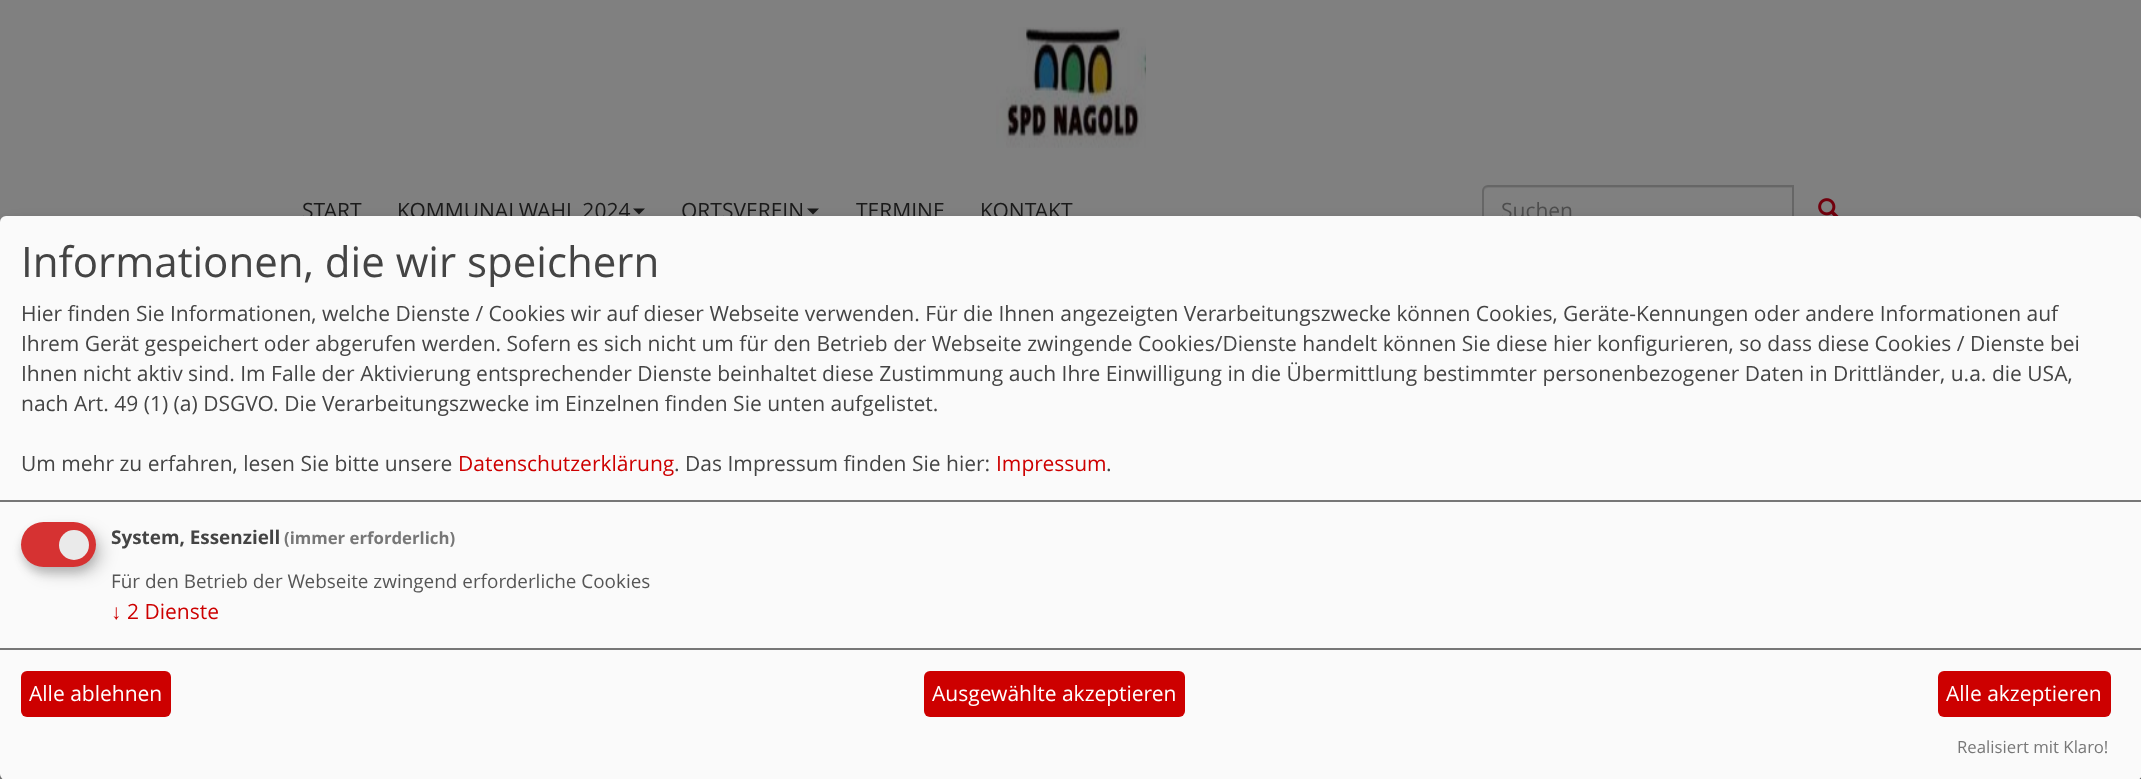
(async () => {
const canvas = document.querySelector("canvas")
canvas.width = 2141
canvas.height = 779
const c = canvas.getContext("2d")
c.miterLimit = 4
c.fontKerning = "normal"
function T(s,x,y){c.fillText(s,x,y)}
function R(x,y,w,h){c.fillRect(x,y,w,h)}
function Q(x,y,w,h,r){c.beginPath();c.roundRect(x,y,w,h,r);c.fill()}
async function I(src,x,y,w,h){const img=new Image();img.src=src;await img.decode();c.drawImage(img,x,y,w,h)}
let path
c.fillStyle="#808080"
R(0,0,2141,779)
await I("1.png",996,27,150,121)
c.font="21px Open Sans"
c.fillStyle="#1a1a1a"
T("START",302,218)
T("KOMMUNALWAHL 2024",397,218)
path = new Path2D("M633 208.5h12l-6 6z")
c.fill(path)
T("ORTSVEREIN",681,218)
path = new Path2D("M807 208.5h12l-6 6z")
c.fill(path)
T("TERMINE",856,218)
T("KONTAKT",980,218)
c.fillStyle="#767676"
path = new Path2D("M1488 188h304v46h1v-48h-304c-3 0-5 3-5 6c0-2 2-4 4-4z")
c.fill(path)
c.beginPath()
c.roundRect(1483,186,310,49,[5,0,0,5])
c.strokeStyle="#666"
c.lineWidth=2
c.stroke()
c.fillStyle="#4d4d4d"
T("Suchen",1501,218)
await I("2.png",1818,198,21,18)
c.fillStyle="#00000030"
c.filter="blur(7.5px)"
c.beginPath()
c.roundRect(8,224,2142,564,6)
c.fill()
c.filter="none"
c.fillStyle="#00000033"
c.filter="blur(4.5px)"
c.beginPath()
c.roundRect(0,222,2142,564,6)
c.fill()
c.filter="none"
c.fillStyle="#fafafa"
Q(0,216,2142,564,6)
c.fillStyle="#777"
R(0,500,2141,2)
c.font="42px Open Sans"
c.fillStyle="#444"
T("Informationen, die wir speichern",21,277)
c.font="21px Open Sans"
T("Hier finden Sie Informationen, welche Dienste / Cookies wir auf dieser Webseite verwenden. Für die Ihnen angezeigten Verarbeitungszwecke können Cookies, Geräte-Kennungen oder andere Informationen auf",21,321)
T("Ihrem Gerät gespeichert oder abgerufen werden. Sofern es sich nicht um für den Betrieb der Webseite zwingende Cookies/Dienste handelt können Sie diese hier konfigurieren, so dass diese Cookies / Dienste bei",21,351)
T("Ihnen nicht aktiv sind. Im Falle der Aktivierung entsprechender Dienste beinhaltet diese Zustimmung auch Ihre Einwilligung in die Übermittlung bestimmter personenbezogener Daten in Drittländer, u.a. die USA,",21,381)
T("nach Art. 49 (1) (a) DSGVO. Die Verarbeitungszwecke im Einzelnen finden Sie unten aufgelistet.",21,411)
T("Um mehr zu erfahren, lesen Sie bitte unsere",21,471)
c.fillStyle="#cd0000"
T("Datenschutzerklärung",458,471)
c.fillStyle="#444"
T(". Das Impressum finden Sie hier:",674,471)
c.fillStyle="#cd0000"
T("Impressum",996,471)
c.fillStyle="#444"
T(".",1106,471)
c.fillStyle="#00000026"
c.filter="blur(7.5px)"
c.beginPath()
c.roundRect(29,530,75,45,22.5)
c.fill()
c.filter="none"
c.fillStyle="#32323233"
c.filter="blur(4.5px)"
c.beginPath()
c.roundRect(21,528,75,45,22.5)
c.fill()
c.filter="none"
c.fillStyle="#d63232"
Q(21,522,75,45,22.5)
c.fillStyle="#eaeaea"
c.beginPath()
c.arc(74,545,15,0,7)
c.fill()
c.font="bold 18.9px Open Sans"
c.fillStyle="#444"
T("System, Essenziell",111,544)
c.font="bold 16.75px Open Sans"
c.fillStyle="#777"
T("(immer erforderlich)",284,544)
c.font="18.9px Open Sans"
c.fillStyle="#555"
T("Für den Betrieb der Webseite zwingend erforderliche Cookies",111,588)
c.font="21px Liberation Sans"
c.fillStyle="#cd0000"
T("↓",111,619)
c.font="21px Open Sans"
T("2 Dienste",127,619)
c.fillStyle="#777"
R(0,648,2141,2)
c.fillStyle="#cd0000"
Q(21,671,150,46,6)
c.fillStyle="#fff"
T("Alle ablehnen",29,701)
c.fillStyle="#cd0000"
Q(924,671,261,46,6)
c.fillStyle="#fff"
T("Ausgewählte akzeptieren",932,701)
c.fillStyle="#cd0000"
Q(1938,671,173,46,6)
c.fillStyle="#fff"
T("Alle akzeptieren",1946,701)
c.font="16.75px Open Sans"
c.fillStyle="#777"
T("Realisiert mit Klaro!",1957,753)
})()
